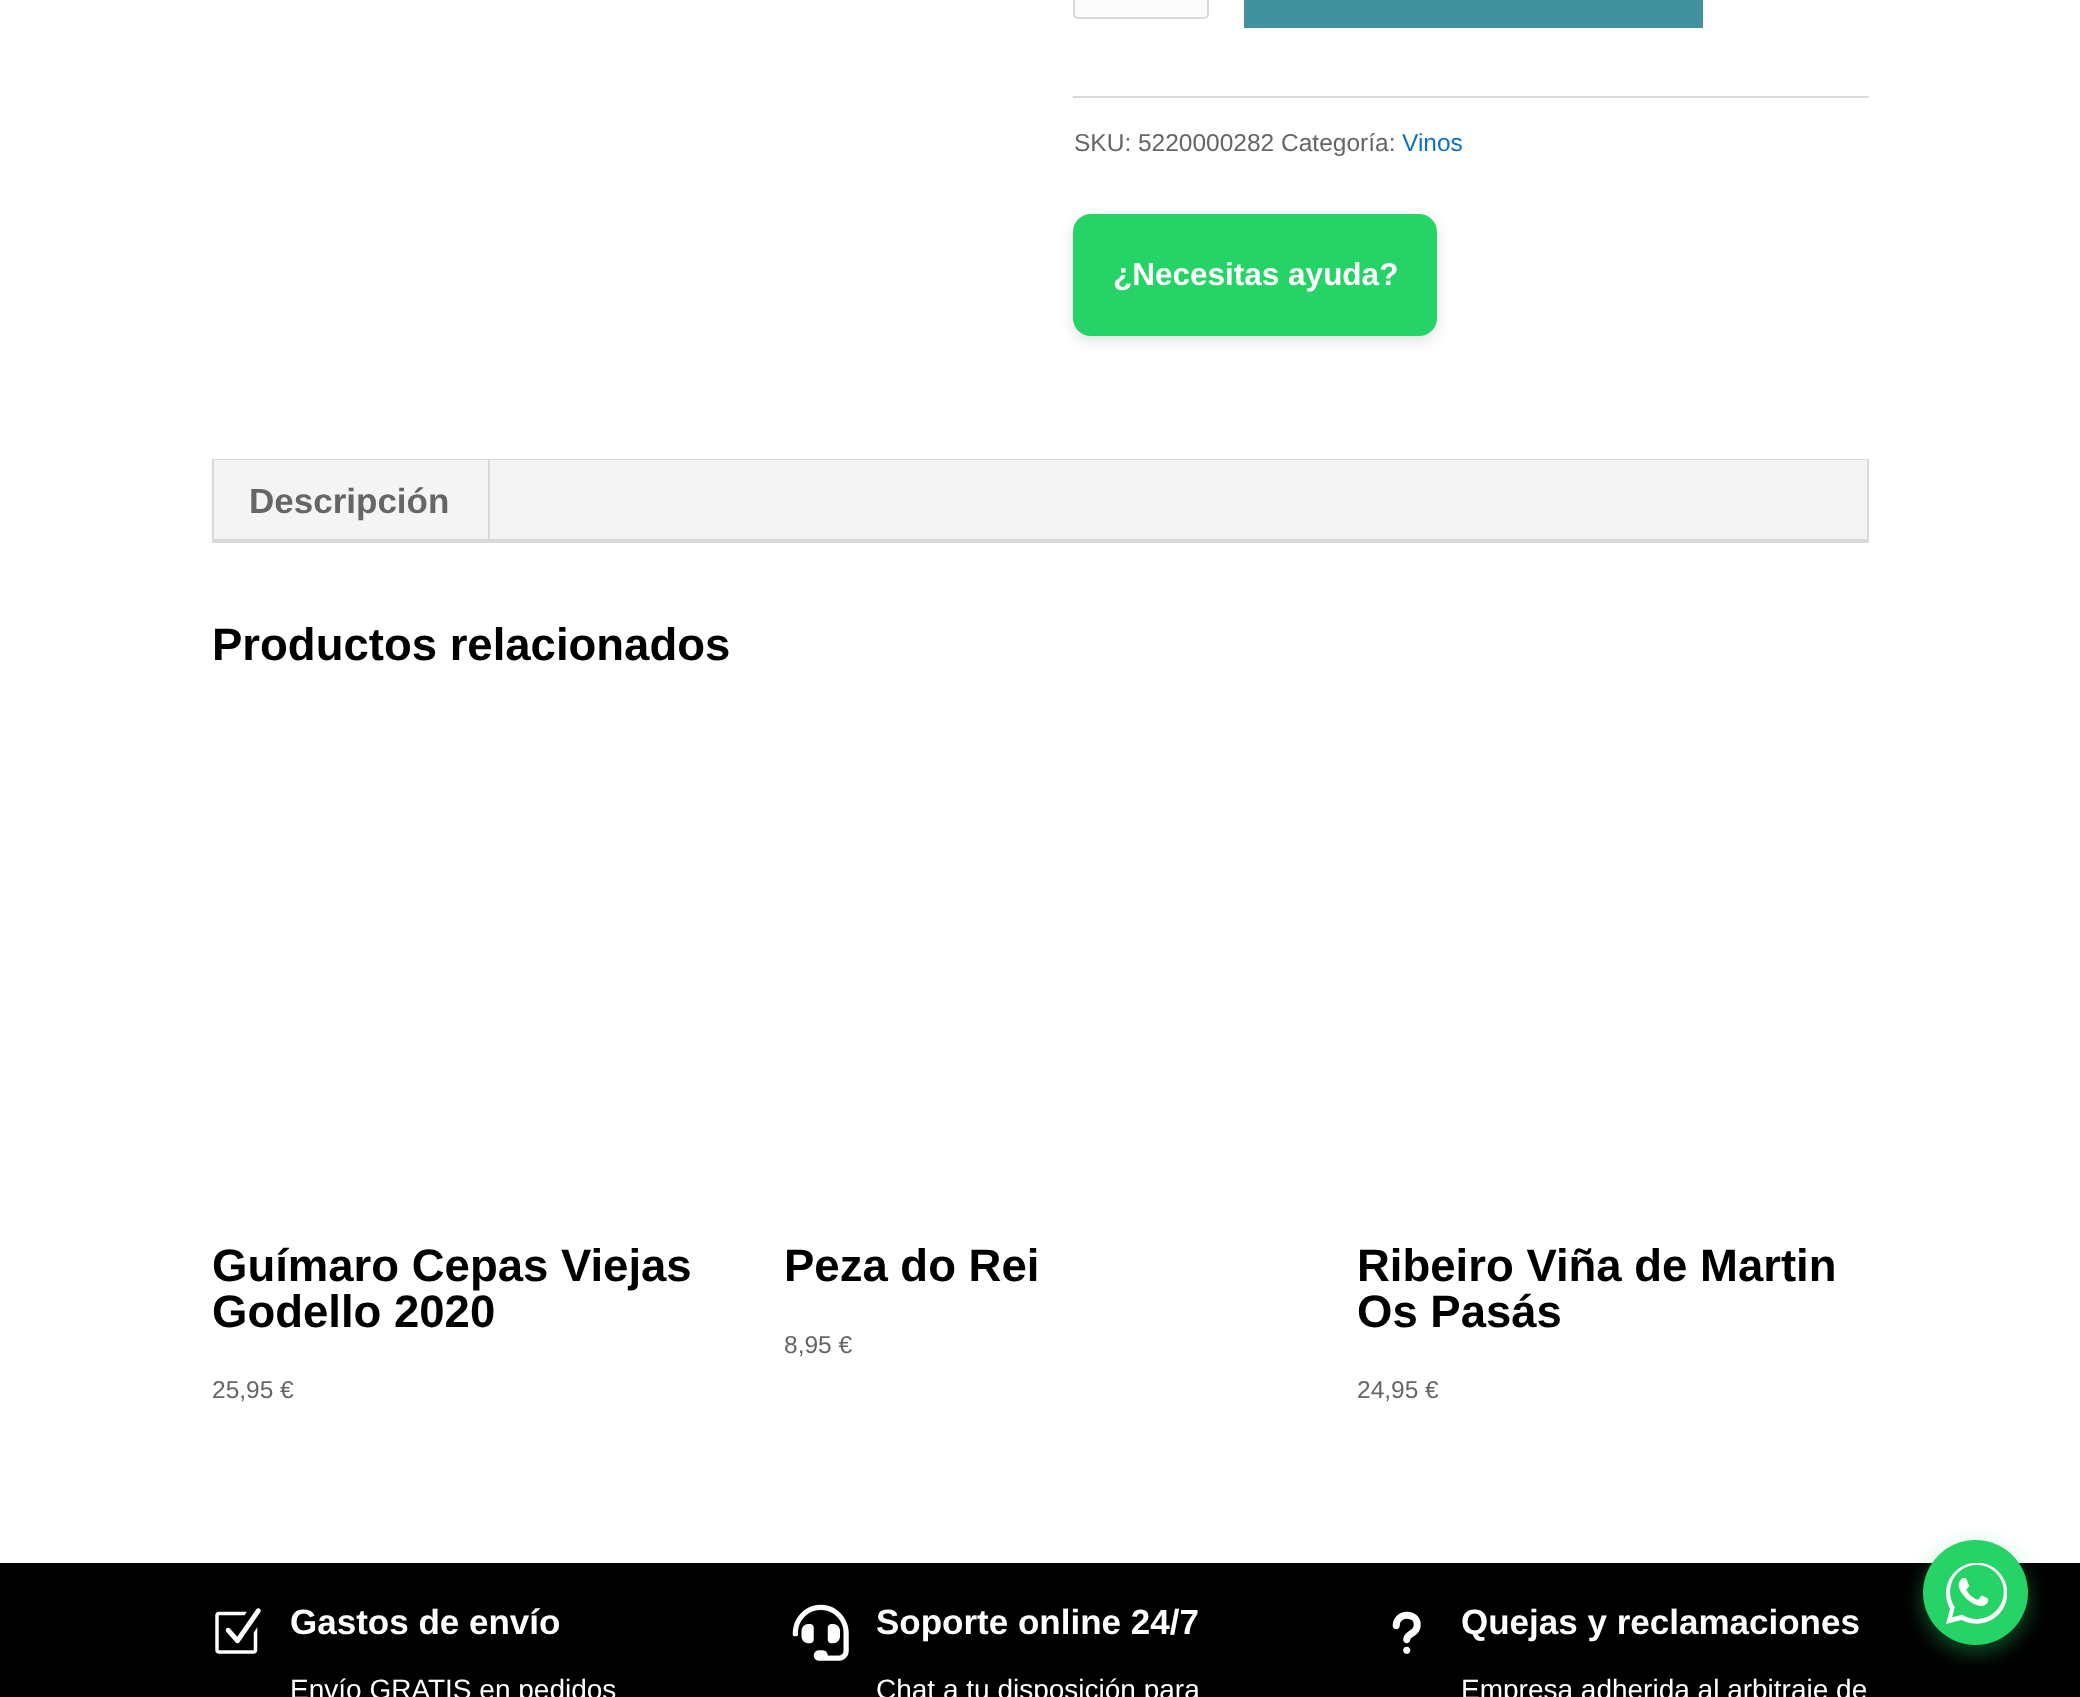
(async () => {
const canvas = document.querySelector("canvas")
canvas.width = 2080
canvas.height = 1697
const c = canvas.getContext("2d")
c.miterLimit = 4
c.fontKerning = "normal"
function T(s,x,y){c.fillText(s,x,y)}
function R(x,y,w,h){c.fillRect(x,y,w,h)}
function Q(x,y,w,h,r){c.beginPath();c.roundRect(x,y,w,h,r);c.fill()}
async function I(src,x,y,w,h){const img=new Image();img.src=src;await img.decode();c.drawImage(img,x,y,w,h)}
c.fillStyle="#fff"
R(0,0,2080,1697)
c.fillStyle="#fbfbfb"
c.beginPath()
c.roundRect(1074,-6,134,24,4)
c.fill()
c.strokeStyle="#d9d9d9"
c.lineWidth=2
c.stroke()
c.fillStyle="#42929d"
R(1244,0,459,28)
c.fillStyle="#dadada"
R(1073,96,796,2)
c.font="24.5px Liberation Sans"
c.fillStyle="#666"
T("SKU: 5220000282 Categoría:",1074,151)
c.fillStyle="#0c71c3"
T("Vinos",1402,151)
c.fillStyle="#0000001f"
c.filter="blur(7px)"
c.beginPath()
c.roundRect(1073,219,364,122,18)
c.fill()
c.filter="none"
c.fillStyle="#25d366"
Q(1073,214,364,122,18)
c.font="bold 31.5px Liberation Sans"
c.fillStyle="#fff"
T("¿Necesitas ayuda?",1113,285)
c.strokeRect(213,460,1655,82)
c.fillStyle="#f4f4f4"
R(214,460,1653,79)
c.fillStyle="#d9d9d9"
R(488,460,2,81)
c.font="bold 35px Liberation Sans"
c.fillStyle="#666"
T("Descripción",249,513)
c.fillStyle="#d9d9d9"
R(214,539,1653,2)
c.font="bold 45.5px Liberation Sans"
c.fillStyle="#000"
T("Productos relacionados",212,660)
T("Guímaro Cepas Viejas",212,1281)
T("Godello 2020",212,1327)
c.font="24.5px Liberation Sans"
c.fillStyle="#666"
T("25,95 €",212,1398)
c.font="bold 45.5px Liberation Sans"
c.fillStyle="#000"
T("Peza do Rei",784,1281)
c.font="24.5px Liberation Sans"
c.fillStyle="#666"
T("8,95 €",784,1353)
c.font="bold 45.5px Liberation Sans"
c.fillStyle="#000"
T("Ribeiro Viña de Martin",1357,1281)
T("Os Pasás",1357,1327)
c.font="24.5px Liberation Sans"
c.fillStyle="#666"
T("24,95 €",1357,1398)
c.fillStyle="#000"
R(0,1563,2080,134)
await I("1.png",215,1608,46,46)
c.font="bold 35px Liberation Sans"
c.fillStyle="#fff"
T("Gastos de envío",290,1634)
c.font="28px Liberation Sans"
T("Envío GRATIS en pedidos",290,1699)
await I("2.png",792,1604,57,57)
c.font="bold 35px Liberation Sans"
T("Soporte online 24/7",876,1634)
c.font="28px Liberation Sans"
T("Chat a tu disposición para",876,1699)
await I("3.png",1392,1611,29,43)
c.font="bold 35px Liberation Sans"
T("Quejas y reclamaciones",1461,1634)
c.font="28px Liberation Sans"
T("Empresa adherida al arbitraje de",1461,1699)
c.fillStyle="#25d36666"
c.filter="blur(10.5px)"
c.beginPath()
c.roundRect(1923,1547,105,105,52.5)
c.fill()
c.filter="none"
c.fillStyle="#25d366"
c.beginPath()
c.arc(1975.5,1592.5,52.5,0,7)
c.fill()
await I("4.png",1946,1563,61,61)
})()
